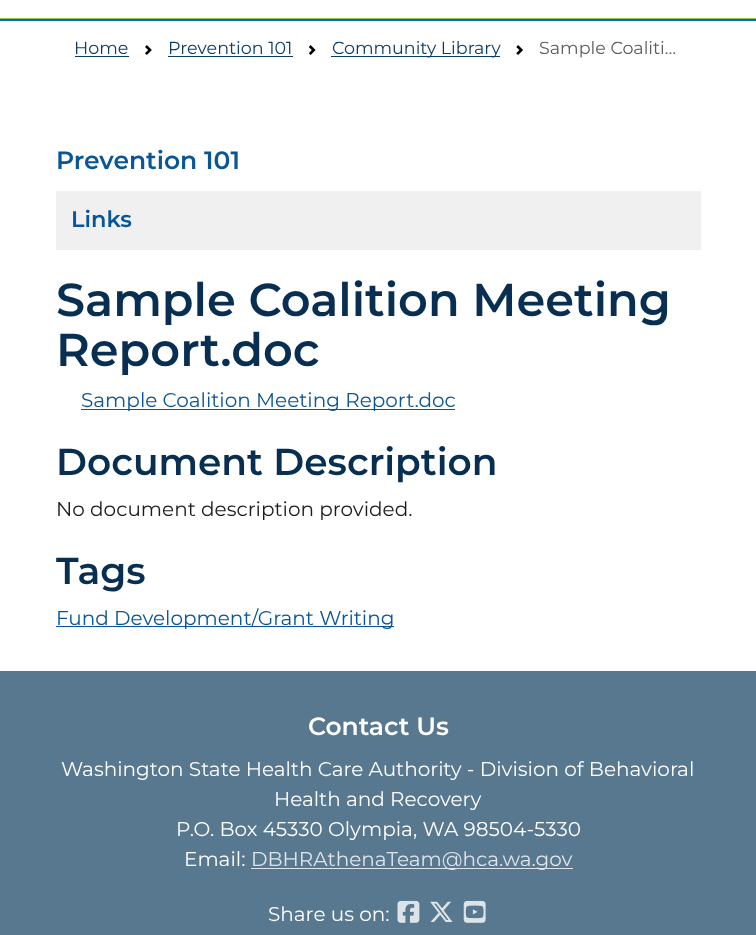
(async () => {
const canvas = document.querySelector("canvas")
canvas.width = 756
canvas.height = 935
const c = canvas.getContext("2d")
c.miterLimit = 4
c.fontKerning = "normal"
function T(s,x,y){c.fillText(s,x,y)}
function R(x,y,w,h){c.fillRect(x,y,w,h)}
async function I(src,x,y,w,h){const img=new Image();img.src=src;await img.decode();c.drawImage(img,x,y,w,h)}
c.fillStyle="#fff"
R(0,0,756,935)
c.fillStyle="#95c93d"
R(0,18,756,1)
c.fillStyle="#0368c0"
R(0,19,756,2)
c.font="17.5px Montserrat"
c.fillStyle="#0c3d67"
T("Home",74,54)
R(75,56,54,1)
await I("1.png",145,45,7,10)
T("Prevention 101",168,54)
R(168,56,125,1)
await I("2.png",308,45,8,10)
R(331,56,169,1)
T("Community Library",332,54)
await I("3.png",516,45,7,10)
c.fillStyle="#5c5c5c"
T("Sample Coaliti…",539,54)
c.font="600 25px Montserrat"
c.fillStyle="#085597"
T("Prevention 101",56,169)
c.fillStyle="#f0f0f0"
R(56,191,645,59)
c.font="600 22.5px Montserrat"
c.fillStyle="#085597"
T("Links",71,227)
c.font="600 46.25px Montserrat"
c.fillStyle="#082f52"
T("Sample Coalition Meeting",56,316)
T("Report.doc",56,366)
c.fillStyle="#085597"
R(81,409,374,1)
c.font="20px Montserrat"
T("Sample Coalition Meeting Report.doc",81,407)
c.font="600 37.5px Montserrat"
c.fillStyle="#082f52"
T("Document Description",56,475)
c.font="20px Montserrat"
c.fillStyle="#1b1b1b"
T("No document description provided.",56,516)
c.font="600 37.5px Montserrat"
c.fillStyle="#082f52"
T("Tags",56,584)
c.fillStyle="#085597"
R(56,626,338,1)
c.font="20px Montserrat"
T("Fund Development/Grant Writing",56,625)
c.fillStyle="#57788e"
R(0,671,756,264)
c.font="600 25px Montserrat"
c.fillStyle="#fff"
T("Contact Us",308,735)
c.font="20px Montserrat"
T("Washington State Health Care Authority - Division of Behavioral",61,776)
T("Health and Recovery",274,806)
T("P.O. Box 45330 Olympia, WA 98504-5330",176,836)
T("Email:",184,866)
c.fillStyle="#dde4e8"
R(251,868,322,1)
c.fillStyle="#dee4e9"
T("DBHRAthenaTeam@hca.wa.gov",251,866)
c.fillStyle="#fff"
T("Share us on:",268,921)
await I("4.png",397,900,23,23)
await I("5.png",430,901,23,21)
await I("6.png",463,900,23,23)
})()
